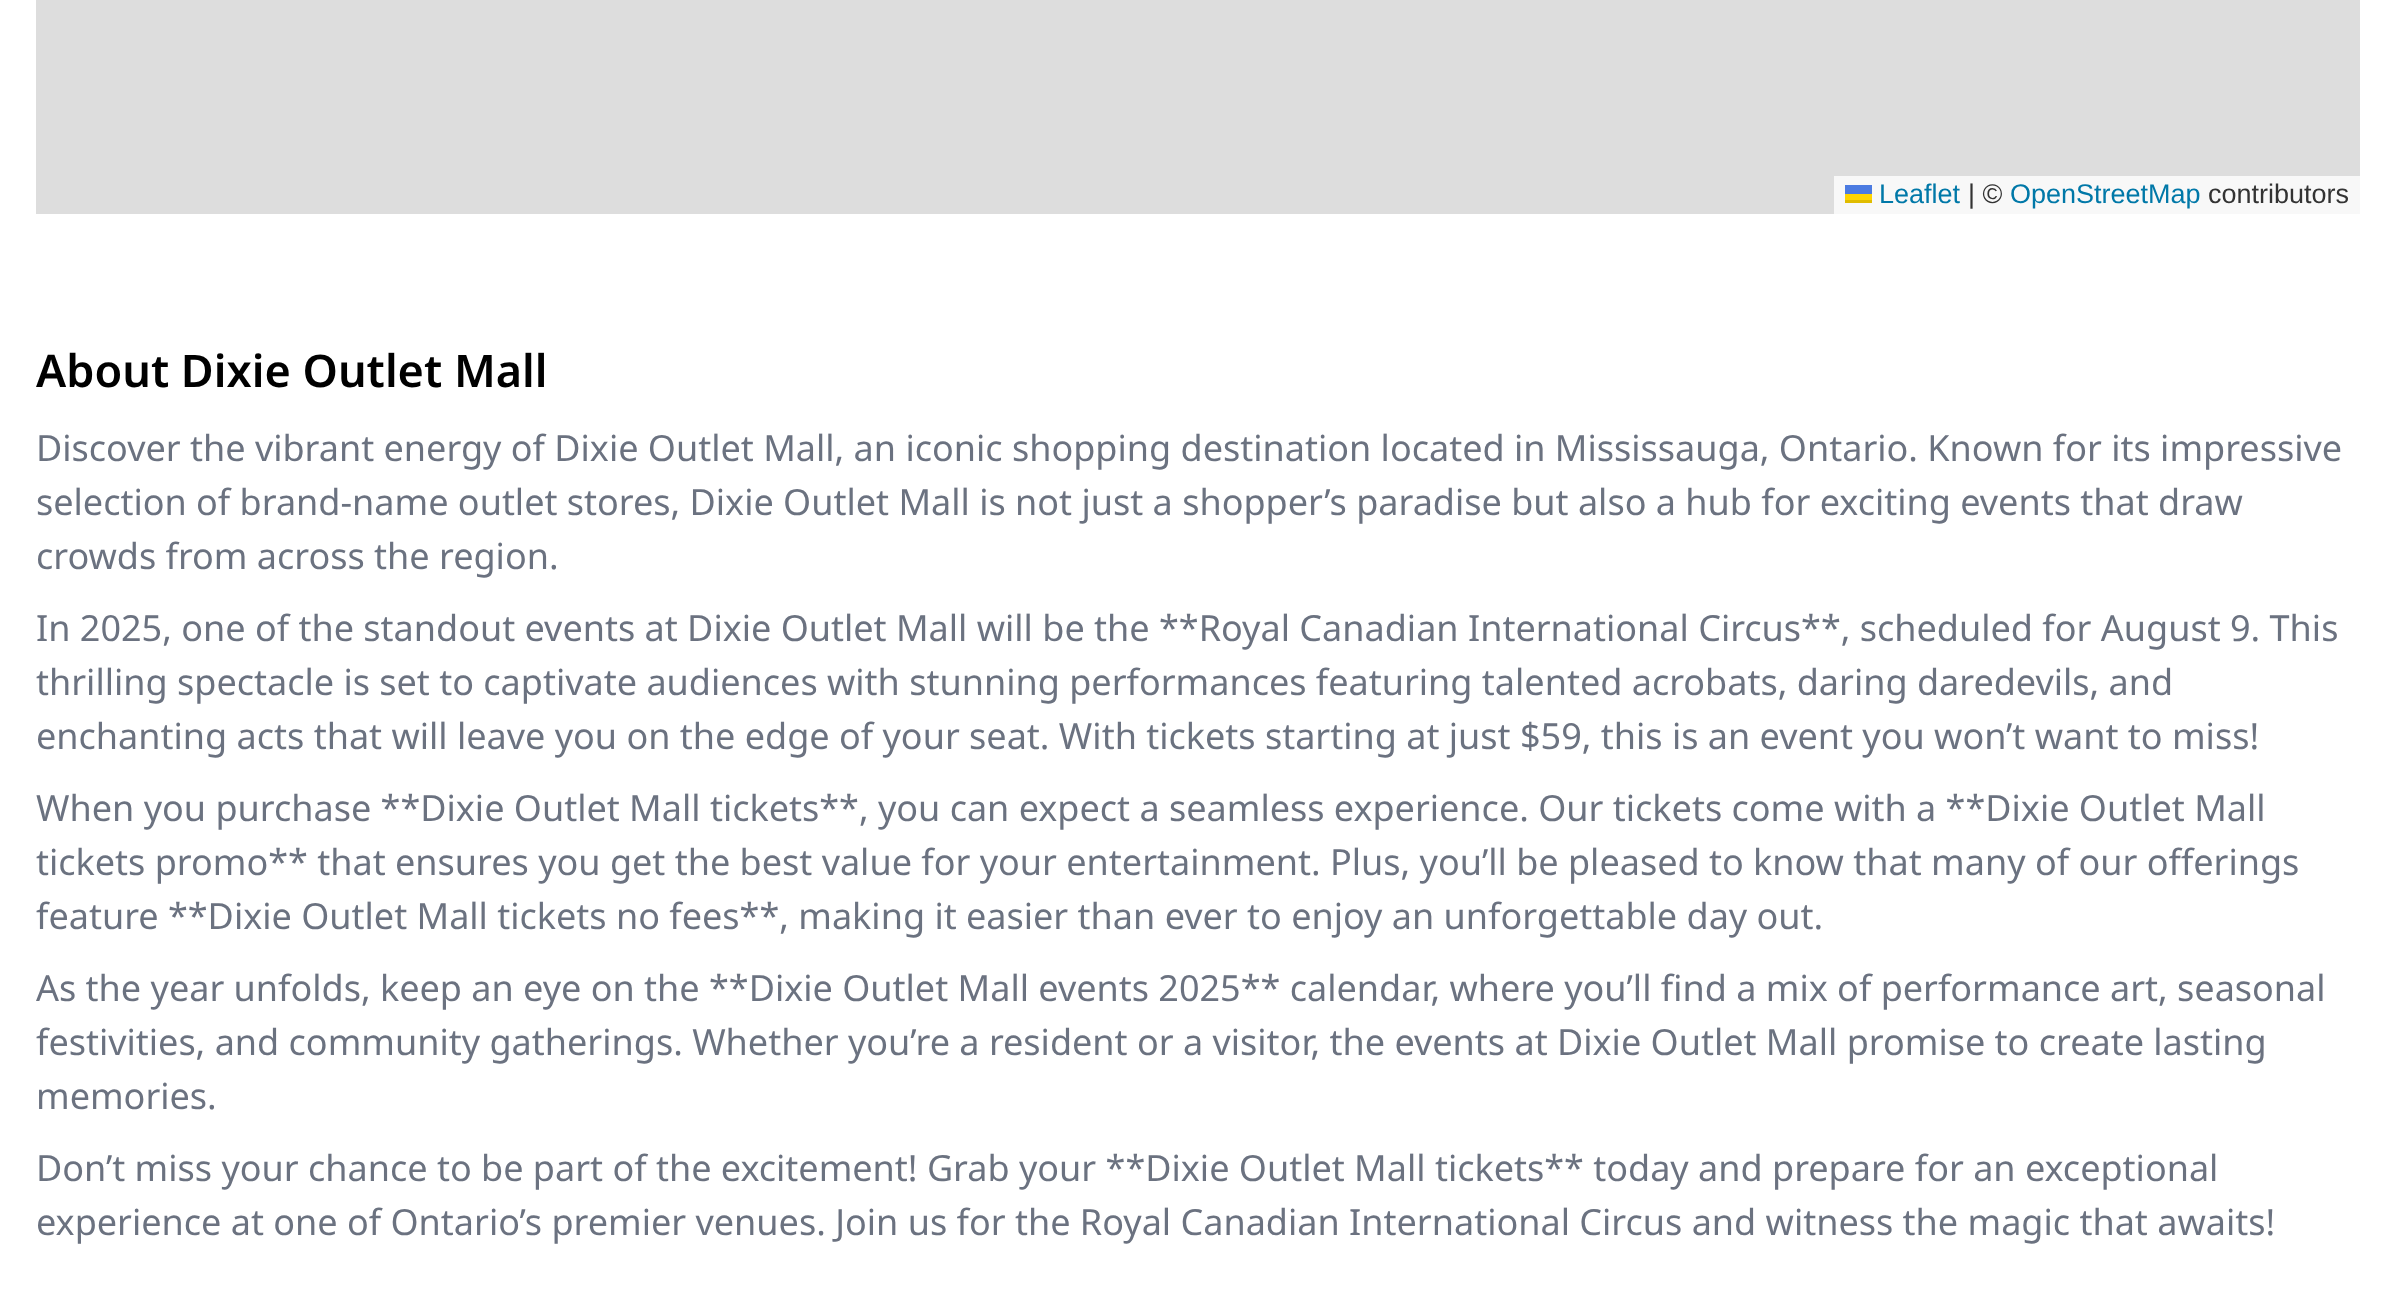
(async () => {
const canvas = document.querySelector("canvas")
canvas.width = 2395
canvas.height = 1290
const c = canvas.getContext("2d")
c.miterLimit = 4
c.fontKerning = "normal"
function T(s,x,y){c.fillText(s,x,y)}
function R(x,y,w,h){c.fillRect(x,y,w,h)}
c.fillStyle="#fff"
R(0,0,2395,1290)
c.fillStyle="#ddd"
R(36,0,2324,214)
c.fillStyle="#f8f8f8"
R(1834,176,526,38)
c.font="27px Liberation Sans"
c.fillStyle="#0078a8"
T("Leaflet",1879,203)
c.fillStyle="#4c7be1"
R(1845,185,27,9)
c.fillStyle="#ffd500"
R(1845,194,27,6)
c.fillStyle="#e0bc00"
R(1845,200,27,3)
c.fillStyle="#333"
T("| ©",1968,203)
c.fillStyle="#0078a8"
T("OpenStreetMap",2010,203)
c.fillStyle="#333"
T("contributors",2208,203)
c.font="600 45px Noto Sans"
c.fillStyle="#000"
T("About Dixie Outlet Mall",36,387)
c.font="36px Noto Sans"
c.fillStyle="#6b7280"
T("Discover the vibrant energy of Dixie Outlet Mall, an iconic shopping destination located in Mississauga, Ontario. Known for its impressive",36,461)
T("selection of brand-name outlet stores, Dixie Outlet Mall is not just a shopper’s paradise but also a hub for exciting events that draw",36,515)
T("crowds from across the region.",36,569)
T("In 2025, one of the standout events at Dixie Outlet Mall will be the **Royal Canadian International Circus**, scheduled for August 9. This",36,641)
T("thrilling spectacle is set to captivate audiences with stunning performances featuring talented acrobats, daring daredevils, and",36,695)
T("enchanting acts that will leave you on the edge of your seat. With tickets starting at just $59, this is an event you won’t want to miss!",36,749)
T("When you purchase **Dixie Outlet Mall tickets**, you can expect a seamless experience. Our tickets come with a **Dixie Outlet Mall",36,821)
T("tickets promo** that ensures you get the best value for your entertainment. Plus, you’ll be pleased to know that many of our offerings",36,875)
T("feature **Dixie Outlet Mall tickets no fees**, making it easier than ever to enjoy an unforgettable day out.",36,929)
T("As the year unfolds, keep an eye on the **Dixie Outlet Mall events 2025** calendar, where you’ll find a mix of performance art, seasonal",36,1001)
T("festivities, and community gatherings. Whether you’re a resident or a visitor, the events at Dixie Outlet Mall promise to create lasting",36,1055)
T("memories.",36,1109)
T("Don’t miss your chance to be part of the excitement! Grab your **Dixie Outlet Mall tickets** today and prepare for an exceptional",36,1181)
T("experience at one of Ontario’s premier venues. Join us for the Royal Canadian International Circus and witness the magic that awaits!",36,1235)
})()
